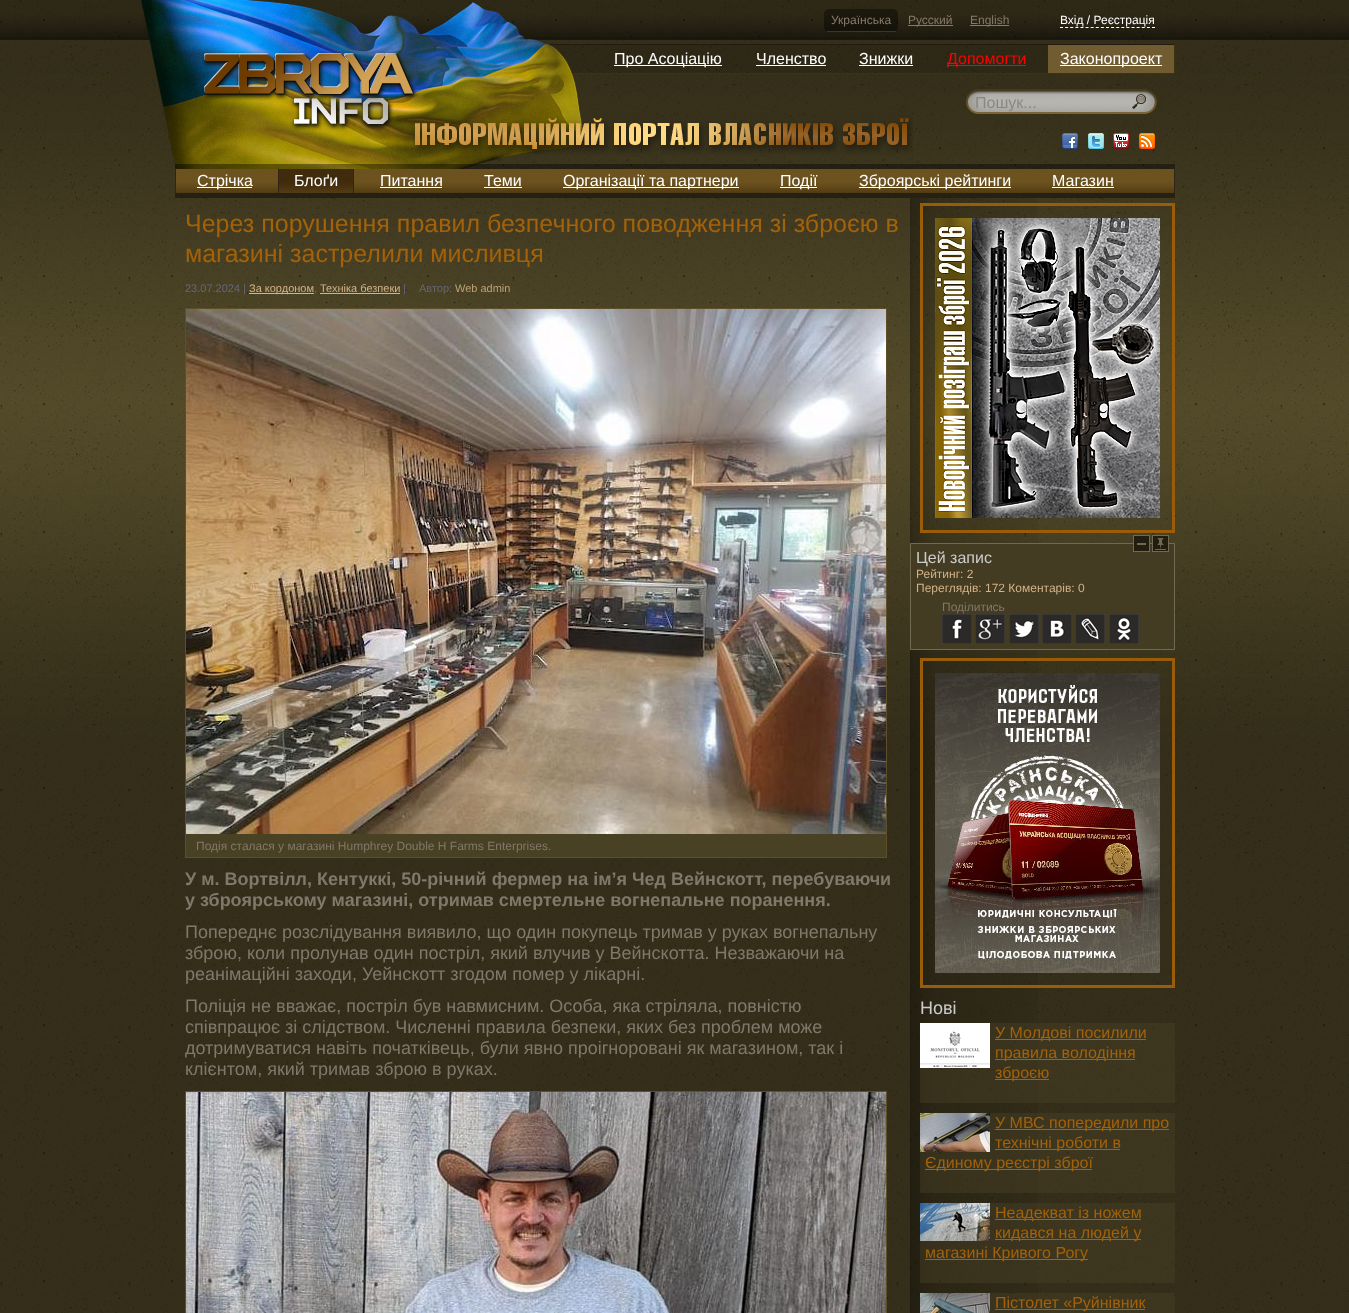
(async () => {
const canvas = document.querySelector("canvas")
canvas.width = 1349
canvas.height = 1313
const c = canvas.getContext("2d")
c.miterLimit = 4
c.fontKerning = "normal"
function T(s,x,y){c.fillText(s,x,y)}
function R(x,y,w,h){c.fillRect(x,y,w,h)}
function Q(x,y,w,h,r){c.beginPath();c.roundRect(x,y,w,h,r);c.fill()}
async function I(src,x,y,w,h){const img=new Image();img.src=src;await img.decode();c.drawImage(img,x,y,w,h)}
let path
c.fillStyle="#fff"
R(0,0,1349,1313)
await I("1.png",0,915,1349,398)
await I("2.png",0,0,1349,915)
await I("4.png",0,0,1349,40)
c.fillStyle="#0000001a"
R(550,45,498,28)
c.fillStyle="#211b10"
R(548,44,627,1)
c.fillStyle="#3c3410"
R(1174,44,1,30)
R(571,73,604,1)
await I("3.png",141,0,442,169)
c.fillStyle="#00000066"
Q(824,9,74,23,5)
c.font="12px Liberation Sans"
c.fillStyle="#887a6a"
T("Українська",831,24)
c.fillStyle="#383529"
R(827,31,69,1)
c.fillStyle="#887a6a"
R(908,25,45,1)
T("Русский",908,24)
R(970,25,39,1)
T("English",970,24)
c.fillStyle="#fff"
T("Вхід / Реєстрація",1060,24)
path = new Path2D("M1060 27.5h95")
c.strokeStyle="#fff"
c.setLineDash([3,2.11])
c.stroke(path)
await I("5.png",202,51,711,103)
R(614,65,108,1)
c.font="16px Liberation Sans"
T("Про Асоціацію",614,64)
T("Членство",756,64)
R(756,65,70,1)
T("Знижки",859,64)
R(859,65,54,1)
c.fillStyle="#f00"
R(947,65,79,1)
T("Допомогти",947,64)
c.fillStyle="#715b31"
R(1048,45,126,28)
c.fillStyle="#fff"
R(1060,65,102,1)
T("Законопроект",1060,64)
await I("6.png",966,89,191,25)
c.fillStyle="#888785"
T("Пошук...",975,108)
await I("7.png",1062,133,16,16)
await I("8.png",1088,133,16,16)
await I("9.png",1113,133,16,16)
await I("10.png",1139,133,16,16)
c.fillStyle="#00000066"
R(175,164,1000,34)
await I("11.png",176,169,998,24)
c.fillStyle="#302517"
R(1174,169,1,24)
R(175,169,1,24)
c.fillStyle="#fff"
R(197,187,55,1)
T("Стрічка",197,186)
await I("12.png",279,169,74,23)
c.fillStyle="#302517"
R(353,169,1,24)
R(278,169,1,24)
c.fillStyle="#fff"
T("Блоґи",294,186)
T("Питання",380,186)
R(380,187,62,1)
T("Теми",484,186)
R(484,187,38,1)
R(563,187,176,1)
T("Організації та партнери",563,186)
R(780,187,37,1)
T("Події",780,186)
R(859,187,152,1)
T("Зброярські рейтинги",859,186)
T("Магазин",1052,186)
R(1052,187,62,1)
await I("13.png",910,198,128,1115)
c.font="25px Liberation Sans"
c.fillStyle="#a3620a"
T("Через порушення правил безпечного поводження зі зброєю в",185,232)
T("магазині застрелили мисливця",185,262)
c.font="11px Liberation Sans"
c.fillStyle="#667"
T("23.07.2024 |",185,292)
c.fillStyle="#d4b387"
R(249,293,65,1)
T("За кордоном",249,292)
c.fillStyle="#667"
T(",",314,292)
c.fillStyle="#d4b387"
R(320,293,80,1)
T("Техніка безпеки",320,292)
c.fillStyle="#667"
T("|",403,292)
T("Автор:",419,292)
c.fillStyle="#bea177"
T("Web admin",455,292)
c.fillStyle="#534a29b3"
R(186,834,700,23)
c.strokeStyle="#5e4f2b"
c.setLineDash([])
c.strokeRect(185.5,308.5,701,549)
await I("14.png",186,309,700,525)
c.font="12px Liberation Sans"
c.fillStyle="#82776b"
T("Подія сталася у магазині Humphrey Double H Farms Enterprises.",196,850)
c.font="bold 18px Liberation Sans"
T("У м. Вортвілл, Кентуккі, 50-річний фермер на імʼя Чед Вейнскотт, перебуваючи",185,885)
T("у зброярському магазині, отримав смертельне вогнепальне поранення.",185,906)
c.font="18px Liberation Sans"
T("Попереднє розслідування виявило, що один покупець тримав у руках вогнепальну",185,938)
T("зброю, коли пролунав один постріл, який влучив у Вейнскотта. Незважаючи на",185,959)
T("реанімаційні заходи, Уейнскотт згодом помер у лікарні.",185,980)
T("Поліція не вважає, постріл був навмисним. Особа, яка стріляла, повністю",185,1012)
T("співпрацює зі слідством. Численні правила безпеки, яких без проблем може",185,1033)
T("дотримуватися навіть початківець, були явно проігноровані як магазином, так і",185,1054)
T("клієнтом, який тримав зброю в руках.",185,1075)
c.strokeRect(185.5,1091.5,701,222)
await I("15.png",186,1092,700,221)
c.fillStyle="#433c22"
c.beginPath()
c.rect(910.5,543.5,264,106)
c.fill()
c.strokeStyle="#726953"
c.stroke()
await I("16.png",1133,535,17,17)
await I("17.png",1152,535,17,17)
c.font="16px Liberation Sans"
c.fillStyle="#ccc"
T("Цей запис",916,563)
c.font="12px Liberation Sans"
c.fillStyle="#d4b387"
T("Рейтинг: 2",916,578)
T("Переглядів: 172 Коментарів: 0",916,592)
c.fillStyle="#82776b"
T("Поділитись",942,611)
await I("18.png",942,614,30,30)
await I("19.png",975,614,30,30)
await I("20.png",1009,614,30,30)
await I("21.png",1042,614,30,30)
await I("22.png",1075,614,30,30)
await I("23.png",1109,614,30,30)
c.strokeStyle="#995c09"
c.lineWidth=3
c.strokeRect(921.5,204.5,252,327)
await I("24.png",935,218,225,300)
c.strokeRect(921.5,659.5,252,327)
await I("25.png",935,673,225,300)
c.font="18px Liberation Sans"
c.fillStyle="#ccc"
T("Нові",920,1014)
c.fillStyle="#4d442766"
R(920,1023,255,80)
await I("26.png",920,1023,70,45)
c.fillStyle="#a3620a"
R(995,1039,151,1)
c.font="16px Liberation Sans"
T("У Молдові посилили",995,1038)
R(995,1059,140,1)
T("правила володіння",995,1058)
R(995,1079,54,1)
T("зброєю",995,1078)
c.fillStyle="#4d442766"
R(920,1113,255,80)
await I("27.png",920,1113,70,39)
c.fillStyle="#a3620a"
R(995,1129,174,1)
T("У МВС попередили про",995,1128)
R(995,1149,125,1)
T("технічні роботи в",995,1148)
R(925,1169,167,1)
T("Єдиному реєстрі зброї",925,1168)
c.fillStyle="#4d442766"
R(920,1203,255,80)
await I("28.png",920,1203,70,38)
c.fillStyle="#a3620a"
R(995,1219,146,1)
T("Неадекват із ножем",995,1218)
R(995,1239,146,1)
T("кидався на людей у",995,1238)
R(925,1259,163,1)
T("магазині Кривого Рогу",925,1258)
c.fillStyle="#4d442766"
R(990,1293,185,20)
await I("29.png",920,1293,70,20)
c.fillStyle="#a3620a"
R(995,1309,150,1)
T("Пістолет «Руйнівник",995,1308)
})()
